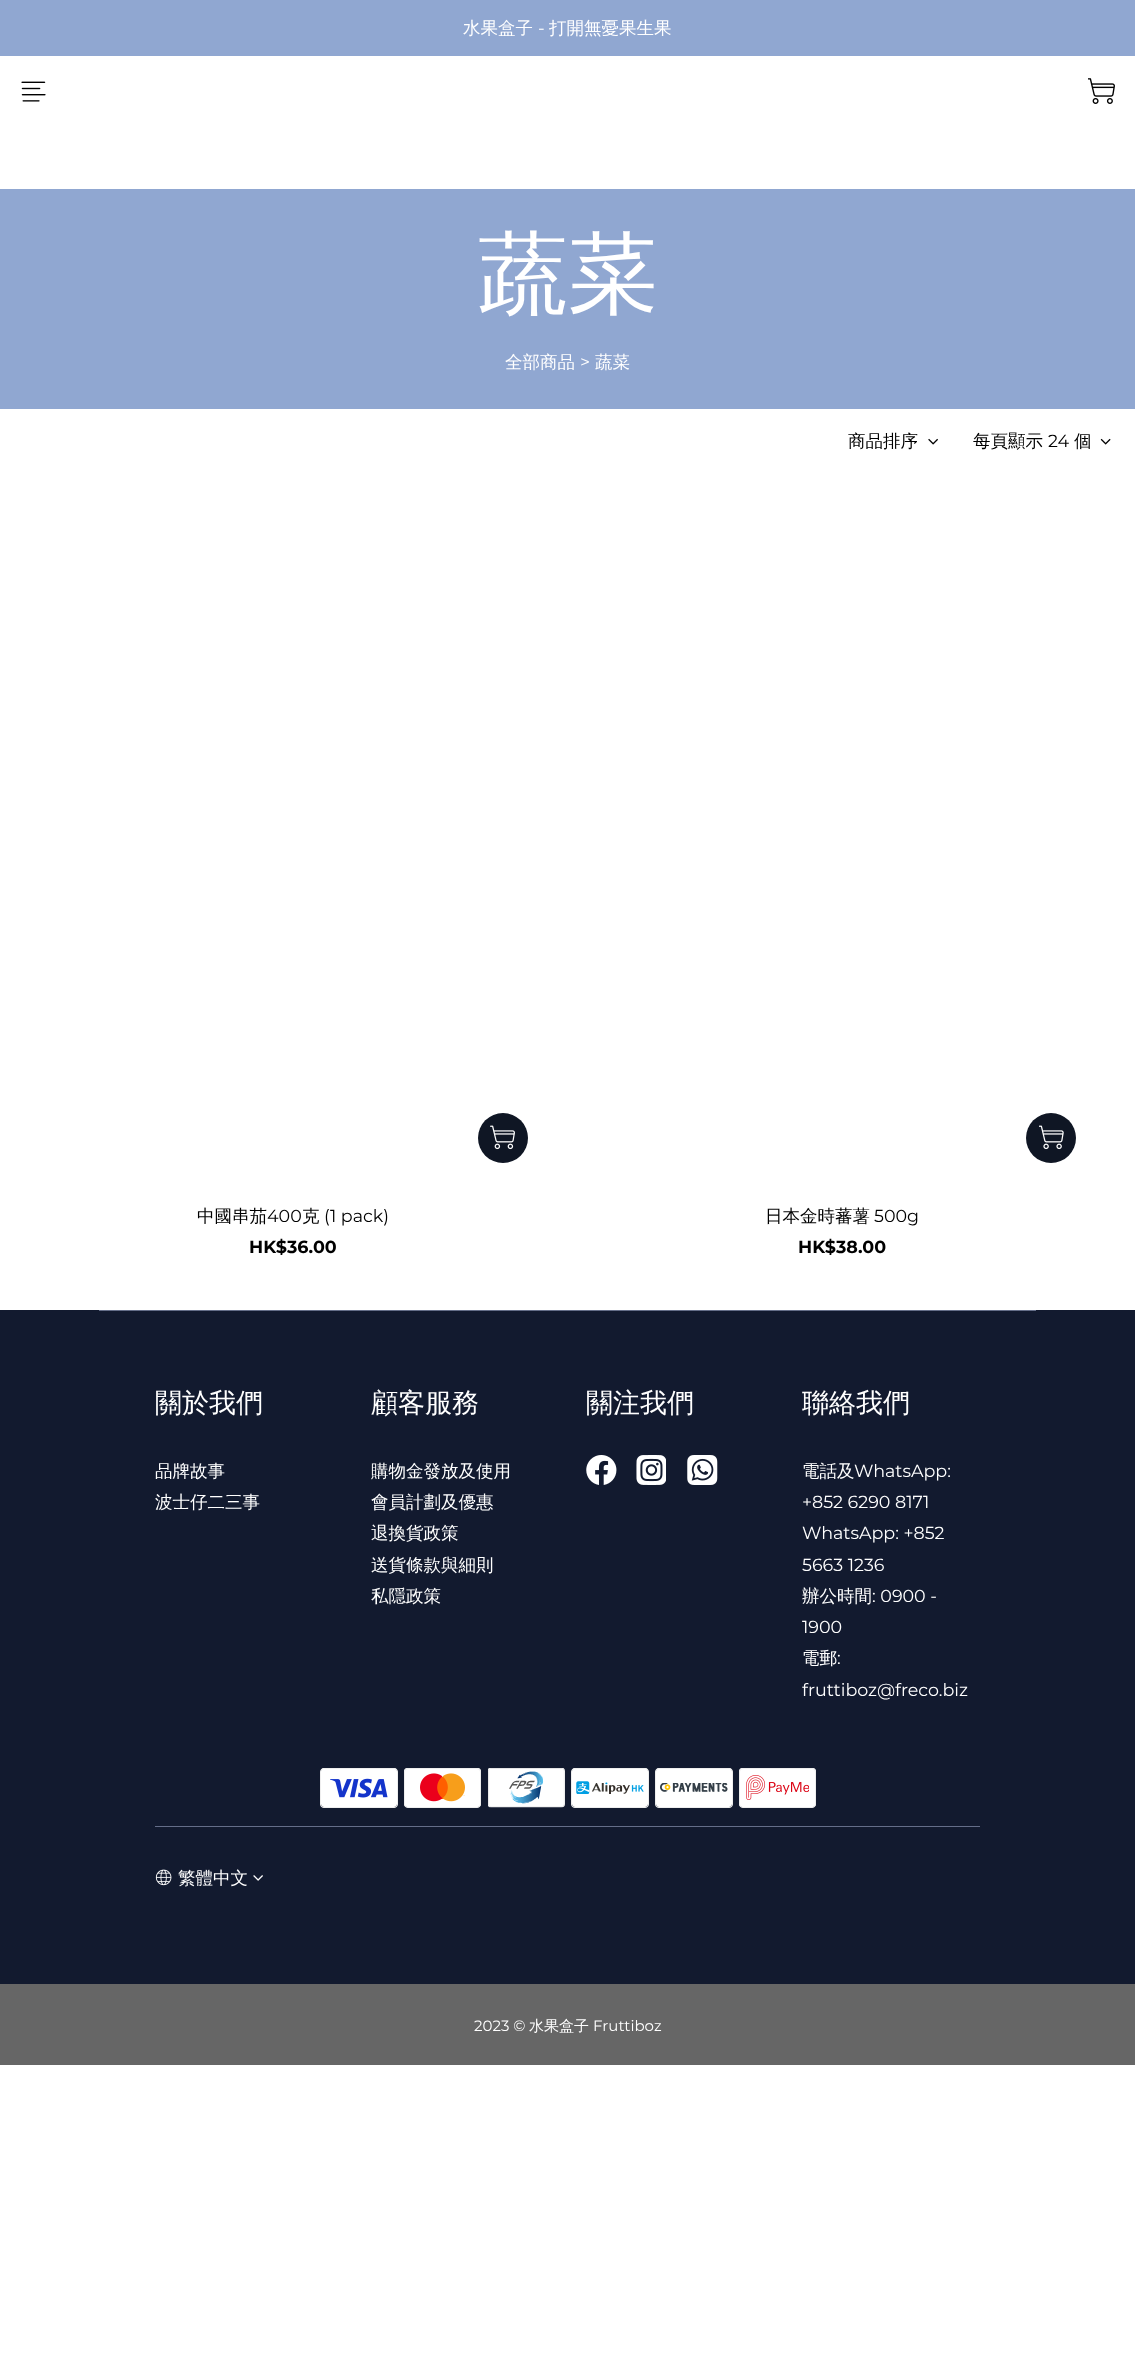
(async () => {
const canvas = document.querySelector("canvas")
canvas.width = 1135
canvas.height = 2371
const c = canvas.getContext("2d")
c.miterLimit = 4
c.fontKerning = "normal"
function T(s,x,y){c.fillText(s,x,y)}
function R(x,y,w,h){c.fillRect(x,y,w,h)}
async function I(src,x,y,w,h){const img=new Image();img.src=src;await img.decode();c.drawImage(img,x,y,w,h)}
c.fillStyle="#fff"
R(0,0,1135,2371)
c.fillStyle="#90a7d1"
R(0,0,1135,56)
c.font="500 17.5px WenQuanYi Zen Hei"
c.fillStyle="#fff"
T("水果盒子",463,34)
c.font="17.5px Montserrat"
T("-",538,34)
c.font="500 17.5px WenQuanYi Zen Hei"
T("打開無憂果生果",549,34)
await I("1.png",21,81,25,21)
await I("2.png",1088,78,27,26)
c.fillStyle="#90a7d1"
R(0,189,1135,220)
c.font="500 90px WenQuanYi Zen Hei"
c.fillStyle="#fff"
T("蔬菜",478,305)
c.font="500 17.5px WenQuanYi Zen Hei"
T("全部商品",505,368)
c.font="17.5px Montserrat"
T(">",580,368)
c.font="500 17.5px WenQuanYi Zen Hei"
T("蔬菜",595,368)
c.fillStyle="#000"
T("商品排序",848,447)
await I("3.png",928,438,10,7)
T("每頁顯示",973,447)
c.font="17.5px Montserrat"
T("24",1048,447)
c.font="500 17.5px WenQuanYi Zen Hei"
T("個",1074,447)
await I("4.png",1100,438,11,7)
c.fillStyle="#0f1624"
c.beginPath()
c.arc(503,1138,25,0,7)
c.fill()
await I("5.png",490,1125,25,25)
c.fillStyle="#000"
T("中國串茄",197,1222)
c.font="17.5px Montserrat"
T("400",267,1222)
c.font="500 17.5px WenQuanYi Zen Hei"
T("克",302,1222)
c.font="17.5px Montserrat"
T("(1 pack)",324,1222)
c.font="bold 17.5px Montserrat"
T("HK$36.00",249,1253)
c.fillStyle="#0f1624"
c.beginPath()
c.arc(1051,1138,25,0,7)
c.fill()
await I("6.png",1039,1125,25,25)
c.font="500 17.5px WenQuanYi Zen Hei"
c.fillStyle="#000"
T("日本金時蕃薯",765,1222)
c.font="17.5px Montserrat"
T("500g",874,1222)
c.font="bold 17.5px Montserrat"
T("HK$38.00",798,1253)
c.fillStyle="#121a2f"
R(0,1310,1135,674)
c.fillStyle="#646e89"
R(99,1310,937,1)
c.font="500 27px WenQuanYi Zen Hei"
c.fillStyle="#fff"
T("關於我們",155,1412)
c.font="500 17.5px WenQuanYi Zen Hei"
T("品牌故事",155,1477)
T("波士仔二三事",155,1508)
c.font="500 27px WenQuanYi Zen Hei"
T("顧客服務",371,1412)
c.font="500 17.5px WenQuanYi Zen Hei"
T("購物金發放及使用",371,1477)
T("會員計劃及優惠",371,1508)
T("退換貨政策",371,1539)
T("送貨條款與細則",371,1571)
T("私隱政策",371,1602)
c.font="500 27px WenQuanYi Zen Hei"
T("關注我們",586,1412)
await I("7.png",586,1455,31,30)
await I("8.png",636,1455,30,30)
await I("9.png",687,1455,31,30)
T("聯絡我們",802,1412)
c.font="500 17.5px WenQuanYi Zen Hei"
T("電話及",802,1477)
c.font="17.5px Montserrat"
T("WhatsApp:",854,1477)
T("+852 6290 8171",802,1508)
T("WhatsApp: +852",802,1539)
T("5663 1236",802,1571)
c.font="500 17.5px WenQuanYi Zen Hei"
T("辦公時間",802,1602)
c.font="17.5px Montserrat"
T(": 0900 -",872,1602)
T("1900",802,1633)
c.font="500 17.5px WenQuanYi Zen Hei"
T("電郵",802,1664)
c.font="17.5px Montserrat"
T(":",837,1664)
T("fruttiboz@freco.biz",802,1696)
await I("10.png",320,1768,78,40)
await I("11.png",404,1768,77,40)
await I("12.png",488,1768,77,40)
await I("13.png",571,1768,78,40)
await I("14.png",655,1768,78,40)
await I("15.png",739,1768,77,40)
c.fillStyle="#646e89"
R(155,1826,825,1)
await I("16.png",155,1869,17,17)
c.font="500 17.5px WenQuanYi Zen Hei"
c.fillStyle="#fff"
T("繁體中文",178,1884)
await I("17.png",253,1875,10,6)
c.fillStyle="#666"
R(0,1984,1135,81)
c.font="15px Montserrat"
c.fillStyle="#fff"
T("2023 ©",474,2031)
c.font="500 15px WenQuanYi Zen Hei"
T("水果盒子",529,2031)
c.font="15px Montserrat"
T("Fruttiboz",593,2031)
})()
